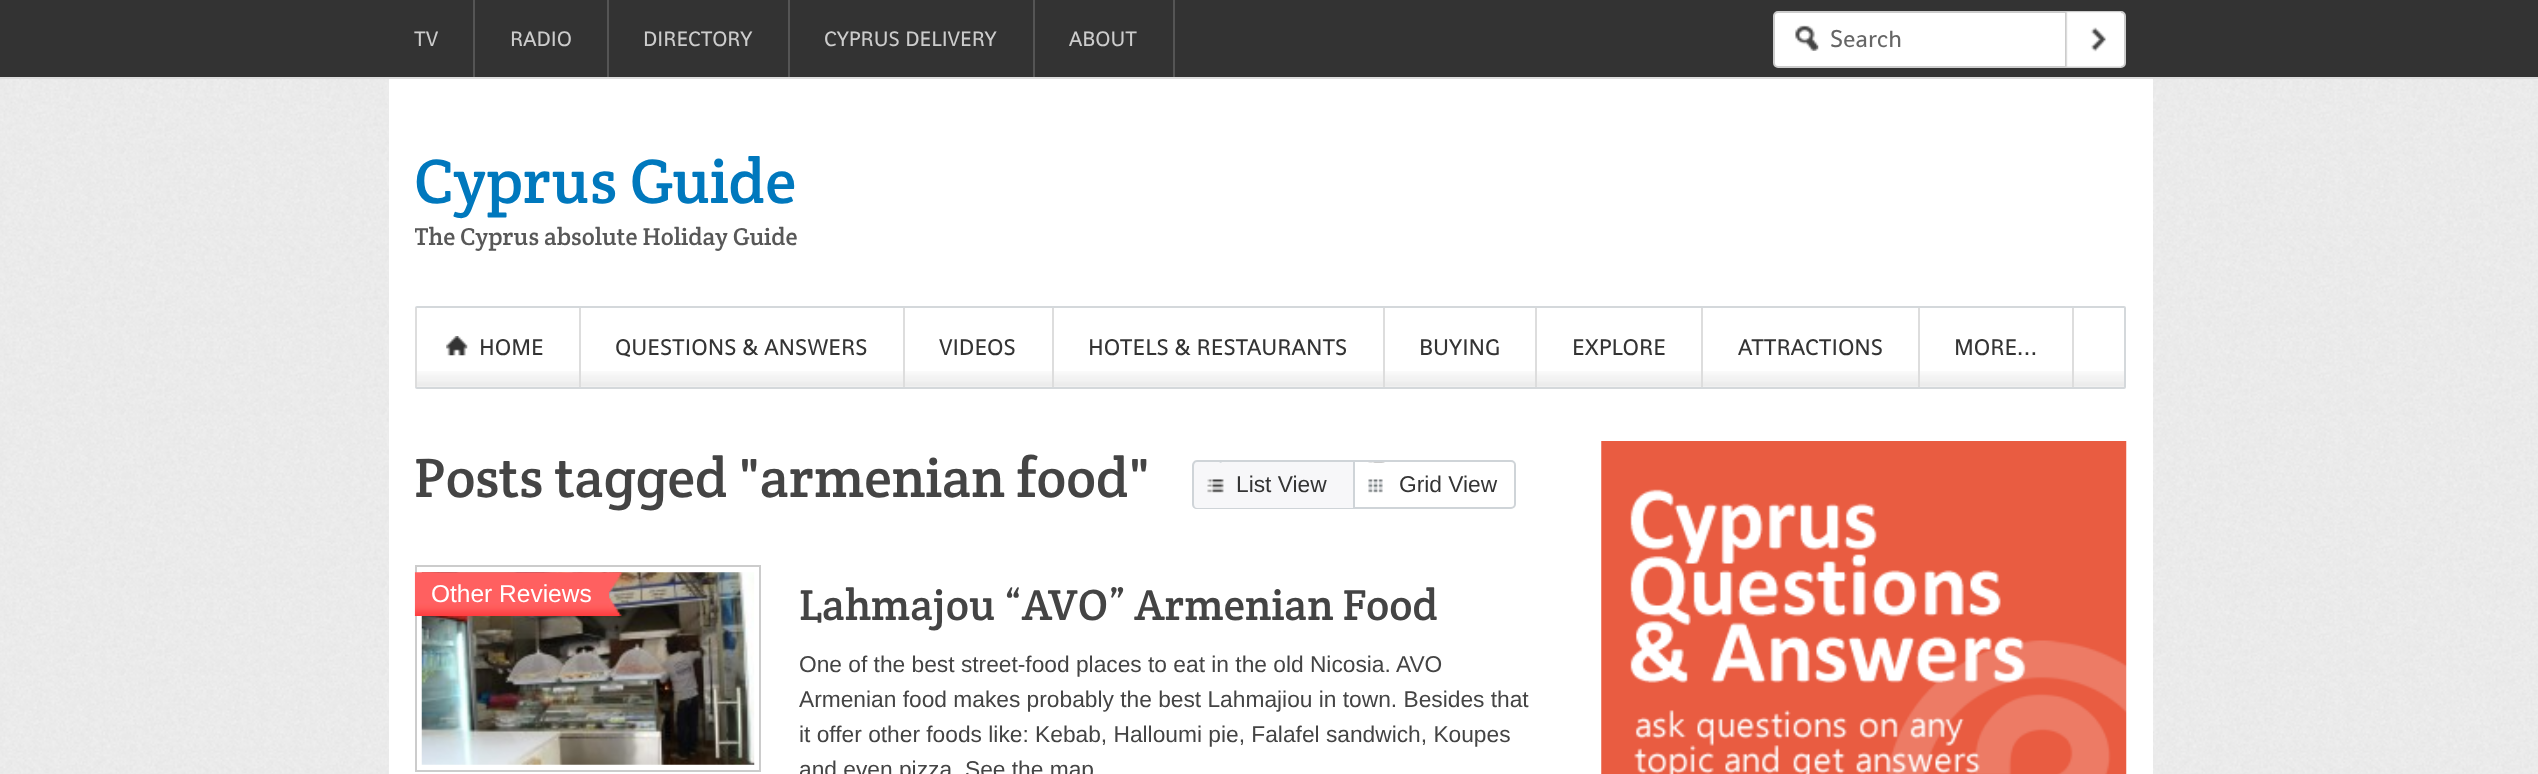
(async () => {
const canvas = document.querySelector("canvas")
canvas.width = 2538
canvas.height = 774
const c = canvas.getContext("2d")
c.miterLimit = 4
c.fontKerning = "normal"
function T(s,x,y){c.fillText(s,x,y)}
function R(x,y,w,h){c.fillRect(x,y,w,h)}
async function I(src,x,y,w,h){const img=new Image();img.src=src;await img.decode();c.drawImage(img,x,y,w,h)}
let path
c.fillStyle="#fff"
R(0,0,2538,774)
await I("1.png",0,79,2538,695)
c.fillStyle="#333"
R(0,0,2538,77)
c.fillStyle="#ddd"
R(0,77,2538,2)
c.fillStyle="#555"
R(473,0,2,77)
c.font="21px Shanti"
c.fillStyle="#ccc"
T("TV",414,46)
c.fillStyle="#555"
R(607,0,2,77)
c.fillStyle="#ccc"
T("RADIO",510,46)
c.fillStyle="#555"
R(788,0,2,77)
c.fillStyle="#ccc"
T("DIRECTORY",643,46)
c.fillStyle="#555"
R(1033,0,2,77)
c.fillStyle="#ccc"
T("CYPRUS DELIVERY",824,46)
c.fillStyle="#555"
R(1173,0,2,77)
c.fillStyle="#ccc"
T("ABOUT",1069,46)
c.fillStyle="#fff"
c.beginPath()
c.roundRect(1774,12,351,55,4)
c.fill()
c.strokeStyle="#ccc"
c.lineWidth=2
c.stroke()
await I("2.png",1795,25,24,26)
c.font="24.5px Shanti"
c.fillStyle="#666"
T("Search",1830,47)
await I("3.png",2065,12,56,55)
c.fillStyle="#fff"
R(389,79,1764,695)
c.font="63px Crete Round"
c.fillStyle="#0078bd"
T("Cyprus Guide",414,203)
c.save()
c.beginPath()
c.rect(415,221,383,75)
c.clip()
c.font="24.5px Crete Round"
c.fillStyle="#585858"
T("The Cyprus absolute Holiday Guide",414,245)
c.restore()
await I("4.png",417,371,1707,16)
c.beginPath()
c.roundRect(416,307,1709,81,1)
c.strokeStyle="#d4d8db"
c.stroke()
c.fillStyle="#ddd"
R(579,308,2,79)
R(415,308,2,79)
await I("5.png",446,336,22,20)
c.font="22.75px Shanti"
c.fillStyle="#343434"
T("HOME",479,355)
c.fillStyle="#ddd"
R(903,308,2,79)
c.fillStyle="#343434"
T("QUESTIONS & ANSWERS",615,355)
c.fillStyle="#ddd"
R(1052,308,2,79)
c.fillStyle="#343434"
T("VIDEOS",939,355)
c.fillStyle="#ddd"
R(1383,308,2,79)
c.fillStyle="#343434"
T("HOTELS & RESTAURANTS",1088,355)
c.fillStyle="#ddd"
R(1535,308,2,79)
c.fillStyle="#343434"
T("BUYING",1419,355)
c.fillStyle="#ddd"
R(1701,308,2,79)
c.fillStyle="#343434"
T("EXPLORE",1572,355)
c.fillStyle="#ddd"
R(1918,308,2,79)
c.fillStyle="#343434"
T("ATTRACTIONS",1738,355)
c.fillStyle="#ddd"
R(2072,308,2,79)
c.fillStyle="#343434"
T("MORE…",1954,355)
c.font="56px Crete Round"
c.fillStyle="#444"
T("Posts tagged \"armenian food\"",414,497)
c.fillStyle="#f7f7f9"
c.beginPath()
c.roundRect(1192,460,161,49,[5,0,0,5])
c.fill()
await I("6.png",1207,462,17,31)
c.fillStyle="#cfd4d8"
path = new Path2D("M1197 460h156v49h-156c-3 0-5-2-5-5v-38c0-3 2-6 5-6zm0 2h156v46h-156c-2 0-3-2-3-4v-38c0-2 1-4 3-4z")
c.fill(path,"evenodd")
c.font="22.75px Liberation Sans"
c.fillStyle="#343434"
T("List View",1236,492)
await I("7.png",1368,462,17,31)
c.beginPath()
c.roundRect(1354,461,161,47,[0,4,4,0])
c.strokeStyle="#cfd4d8"
c.stroke()
T("Grid View",1399,492)
c.strokeStyle="#ccc"
c.strokeRect(416,566,344,205)
await I("8.png",421,572,334,193)
await I("9.png",609,572,14,44)
await I("10.png",414,572,195,44)
c.font="24.5px Liberation Sans"
c.fillStyle="#fff"
T("Other Reviews",431,602)
c.font="43.75px Crete Round"
c.fillStyle="#444"
T("Lahmajou “AVO” Armenian Food",799,620)
c.font="22.75px Liberation Sans"
T("One of the best street-food places to eat in the old Nicosia. AVO",799,672)
T("Armenian food makes probably the best Lahmajiou in town. Besides that",799,707)
T("it offer other foods like: Kebab, Halloumi pie, Falafel sandwich, Koupes",799,742)
T("and even pizza",799,777)
T("See the map",965,777)
await I("11.png",1601,441,526,333)
})()
